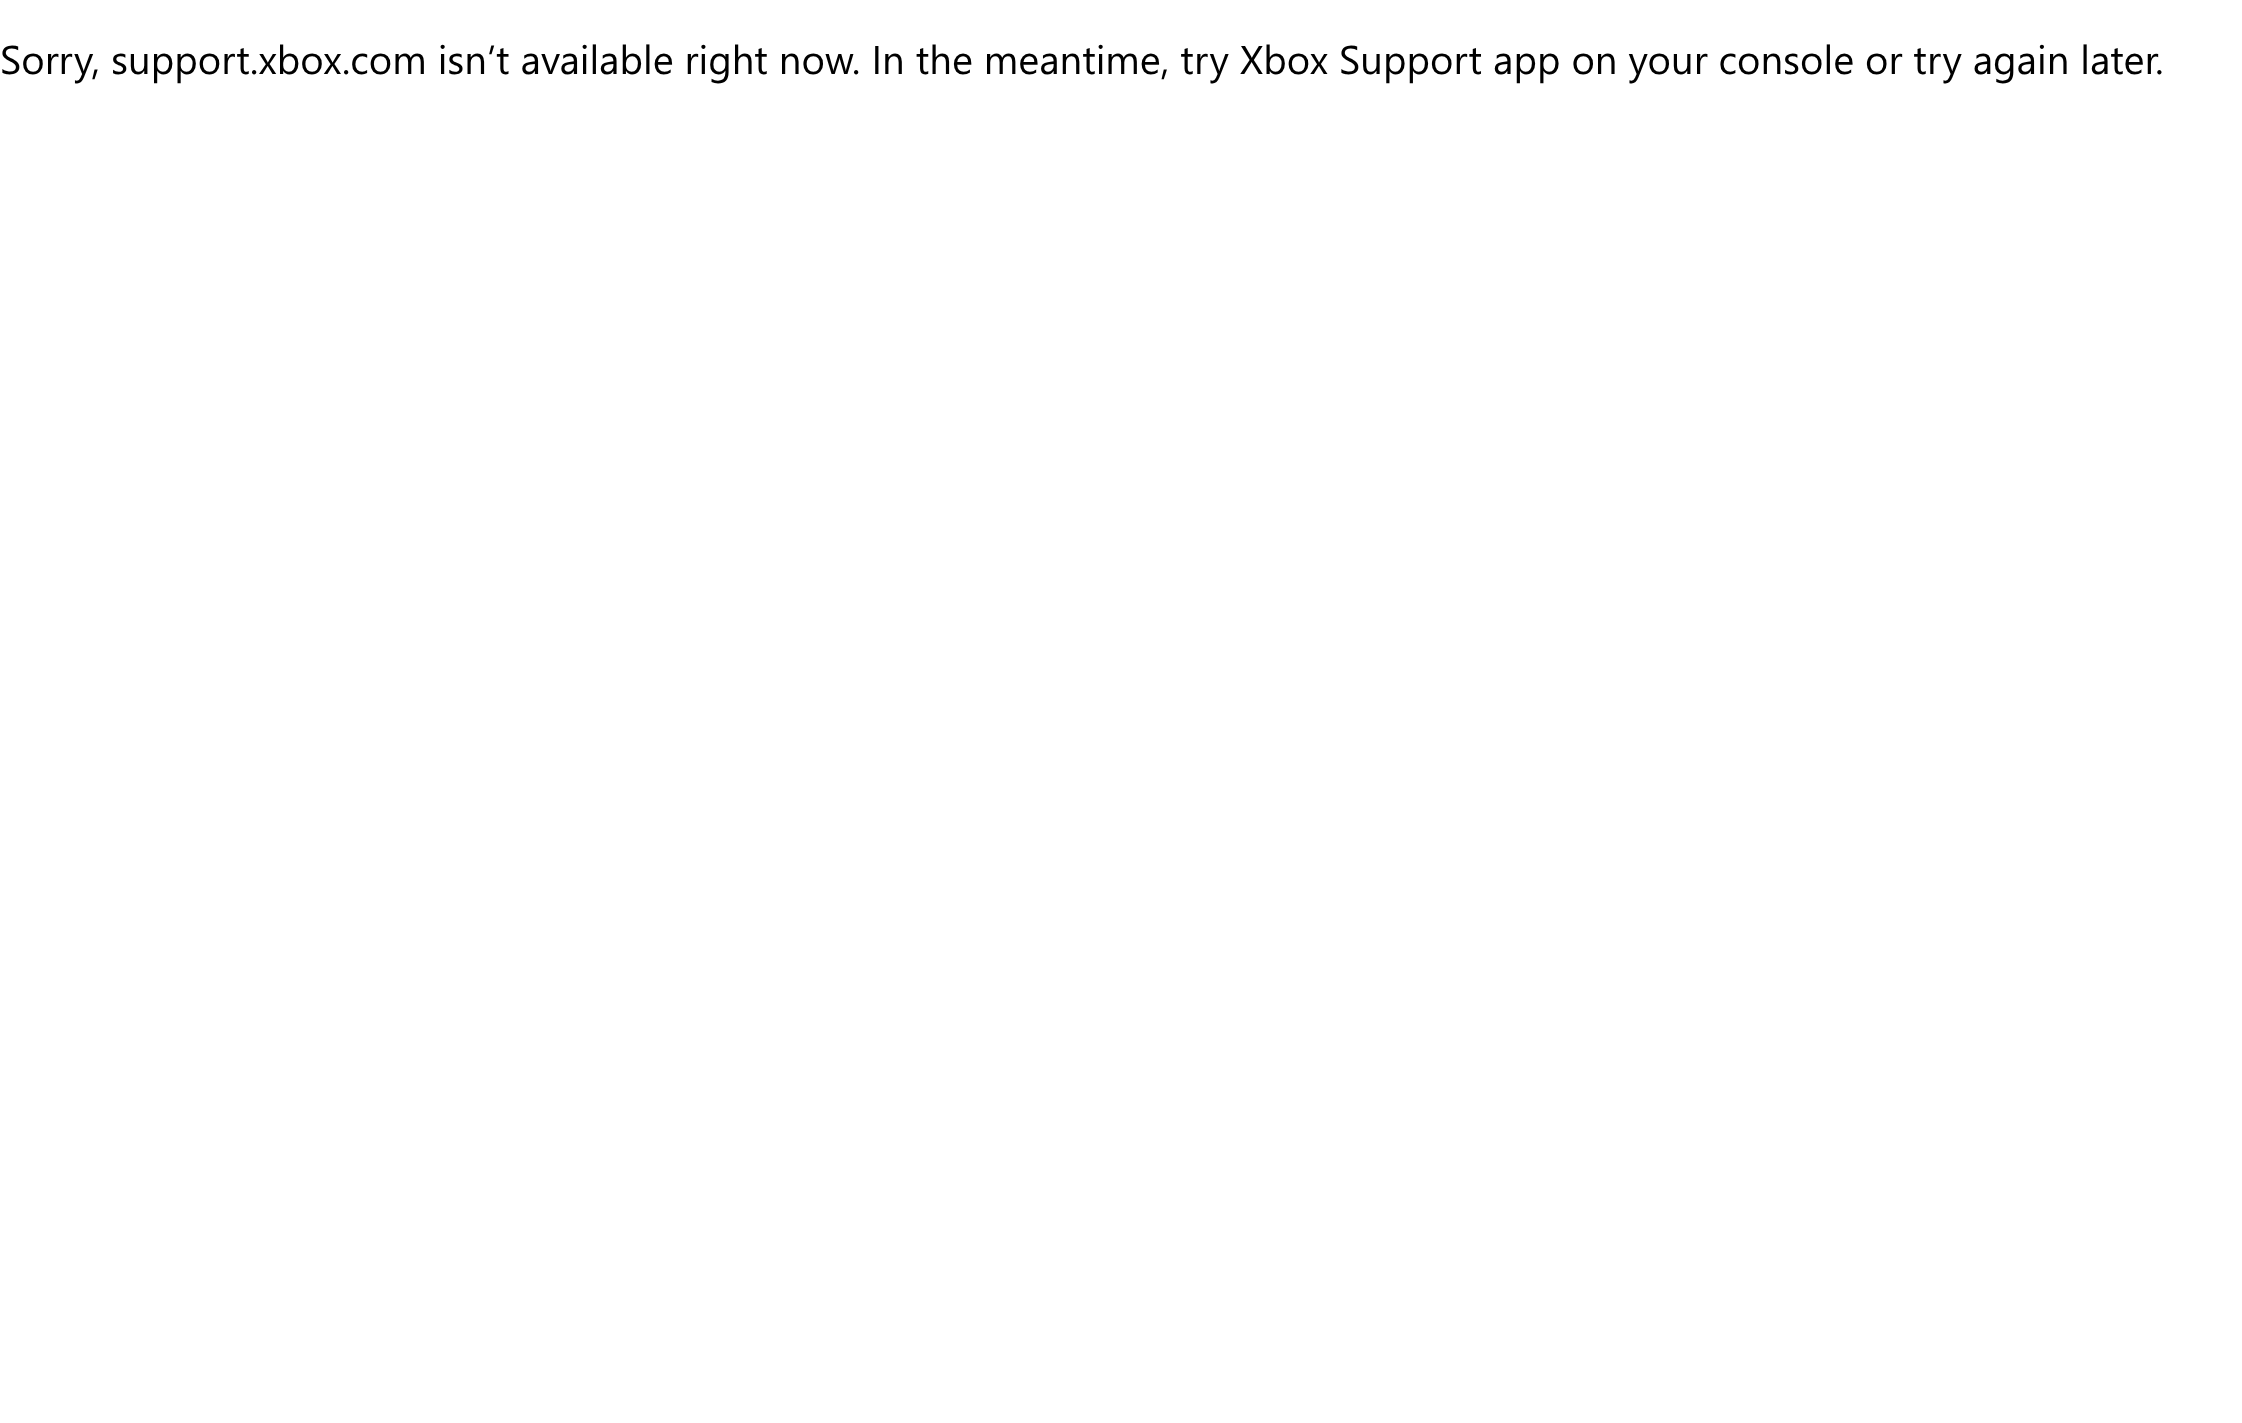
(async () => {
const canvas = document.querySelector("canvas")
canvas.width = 2242
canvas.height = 1423
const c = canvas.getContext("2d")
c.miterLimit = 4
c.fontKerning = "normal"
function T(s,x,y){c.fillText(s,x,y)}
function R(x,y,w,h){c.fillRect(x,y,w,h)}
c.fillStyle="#fff"
R(0,0,2242,1423)
c.font="40px Segoe UI"
c.fillStyle="#000"
T("Sorry, support.xbox.com isn’t available right now. In the meantime, try Xbox Support app on your console or try again later.",0,74)
})()
